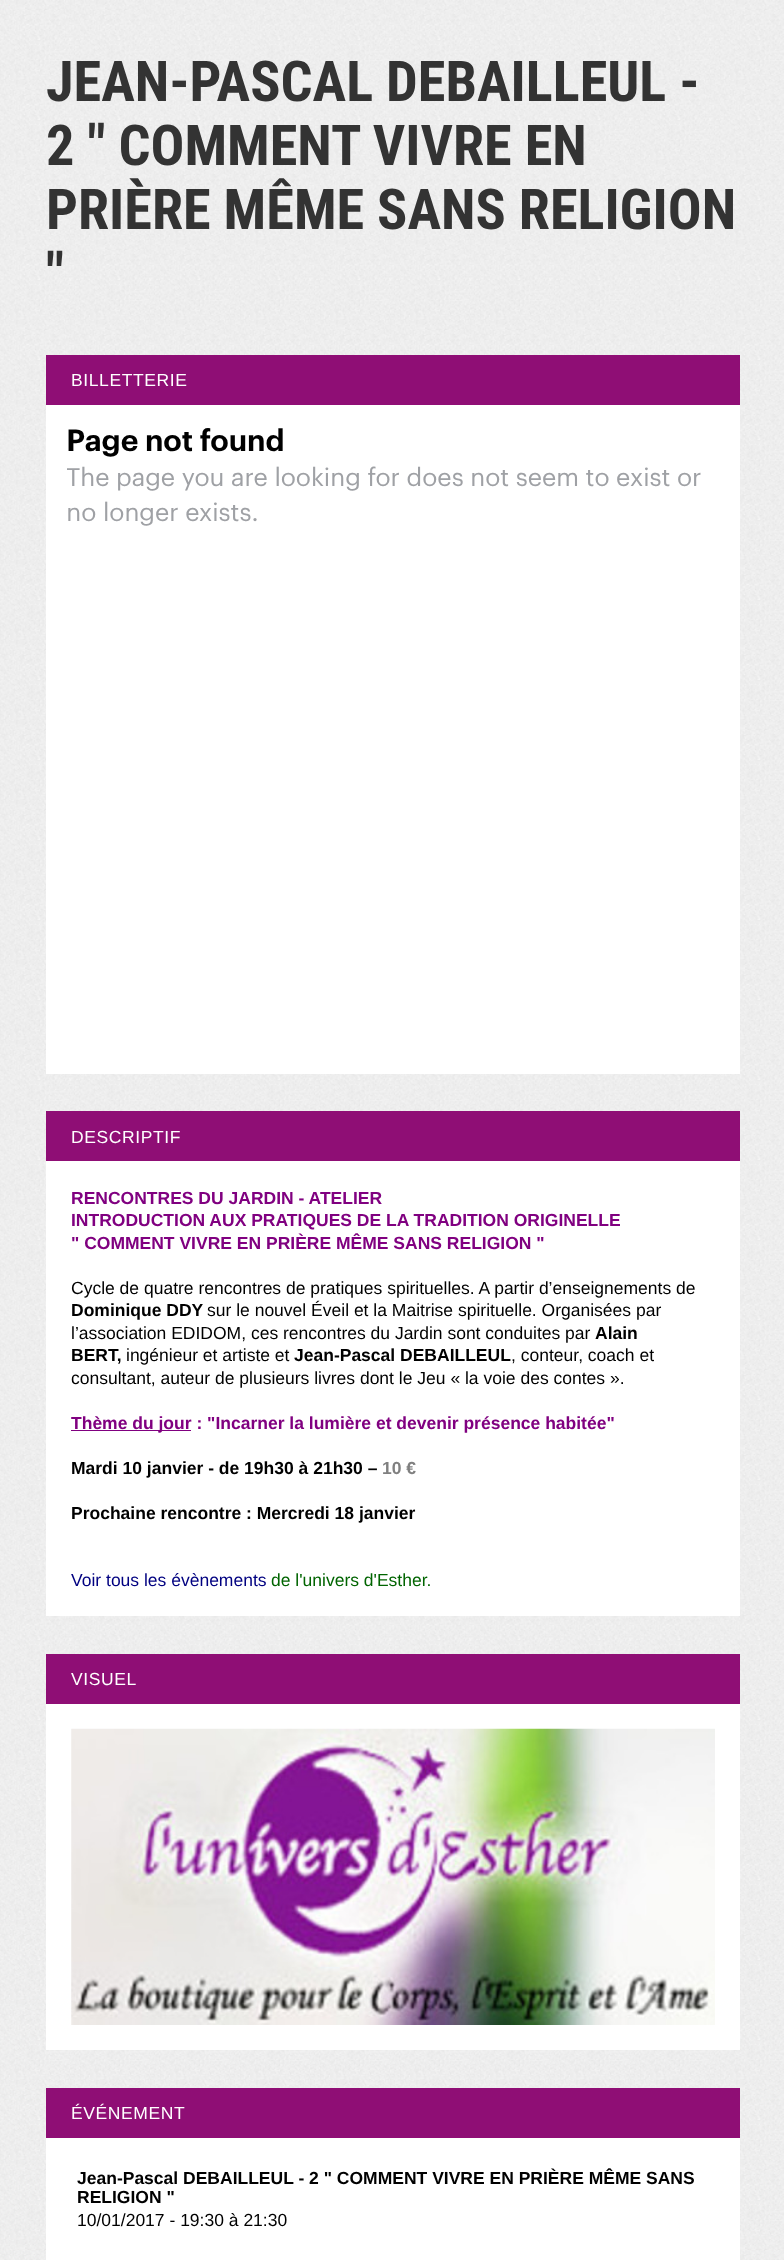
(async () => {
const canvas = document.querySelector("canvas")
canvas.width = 784
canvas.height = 2260
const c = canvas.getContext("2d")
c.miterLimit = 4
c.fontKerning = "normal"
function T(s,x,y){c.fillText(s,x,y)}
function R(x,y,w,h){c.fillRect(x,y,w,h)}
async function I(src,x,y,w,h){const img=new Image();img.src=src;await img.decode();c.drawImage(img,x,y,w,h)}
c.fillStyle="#fff"
R(0,0,784,2260)
await I("1.png",0,0,784,2260)
c.font="bold 56.25px Roboto Condensed"
c.fillStyle="#333"
T("JEAN-PASCAL DEBAILLEUL -",46,101)
T("2 \" COMMENT VIVRE EN",46,165)
T("PRIÈRE MÊME SANS RELIGION",46,229)
T("\"",46,293)
c.fillStyle="#8f0e75"
R(46,355,694,50)
c.letterSpacing="0.6px"
c.font="17.5px Liberation Sans"
c.fillStyle="#fff"
T("BILLETTERIE",71,386)
R(46,405,694,669)
await I("2.png",67,428,634,98)
c.fillStyle="#8f0e75"
R(46,1111,694,50)
c.fillStyle="#fff"
T("DESCRIPTIF",71,1143)
R(46,1161,694,455)
c.letterSpacing="0px"
c.font="bold 17.5px Liberation Sans"
c.fillStyle="#800080"
T("RENCONTRES DU JARDIN - ATELIER",71,1204)
T("INTRODUCTION AUX PRATIQUES DE LA TRADITION ORIGINELLE",71,1226)
T("\" COMMENT VIVRE EN PRIÈRE MÊME SANS RELIGION \"",71,1249)
c.font="17.5px Liberation Sans"
c.fillStyle="#000"
T("Cycle de quatre rencontres de pratiques spirituelles. A partir d’enseignements de",71,1294)
c.font="bold 17.5px Liberation Sans"
T("Dominique DDY",71,1316)
c.font="17.5px Liberation Sans"
T("sur le nouvel Éveil et la Maitrise spirituelle. Organisées par",207,1316)
T("l’association EDIDOM, ces rencontres du Jardin sont conduites par",71,1339)
c.font="bold 17.5px Liberation Sans"
T("Alain",595,1339)
T("BERT,",71,1361)
c.font="17.5px Liberation Sans"
T("ingénieur et artiste et",126,1361)
c.font="bold 17.5px Liberation Sans"
T("Jean-Pascal DEBAILLEUL",294,1361)
c.font="17.5px Liberation Sans"
T(", conteur, coach et",511,1361)
T("consultant, auteur de plusieurs livres dont le Jeu « la voie des contes ».",71,1384)
c.fillStyle="#800080"
R(71,1430,120,1)
c.font="bold 17.5px Liberation Sans"
T("Thème du jour : \"Incarner la lumière et devenir présence habitée\"",71,1429)
c.fillStyle="#000"
T("Mardi 10 janvier - de 19h30 à 21h30 –",71,1474)
c.fillStyle="#808080"
T("10 €",382,1474)
c.fillStyle="#000"
T("Prochaine rencontre : Mercredi 18 janvier",71,1519)
c.font="17.5px Liberation Sans"
c.fillStyle="#000080"
T("Voir tous les évènements",71,1586)
c.fillStyle="#006400"
T("de l'univers d'Esther.",271,1586)
c.fillStyle="#8f0e75"
R(46,1654,694,50)
c.letterSpacing="0.6px"
c.fillStyle="#fff"
T("VISUEL",71,1685)
R(46,1704,694,346)
await I("3.png",71,1728,644,297)
c.fillStyle="#8f0e75"
R(46,2088,694,50)
c.fillStyle="#fff"
T("ÉVÉNEMENT",71,2119)
R(46,2138,694,122)
c.letterSpacing="0px"
c.font="bold 17.5px Liberation Sans"
c.fillStyle="#000"
T("Jean-Pascal DEBAILLEUL - 2 \" COMMENT VIVRE EN PRIÈRE MÊME SANS",77,2184)
T("RELIGION \"",77,2203)
c.font="17.5px Liberation Sans"
T("10/01/2017 - 19:30 à 21:30",77,2226)
})()
